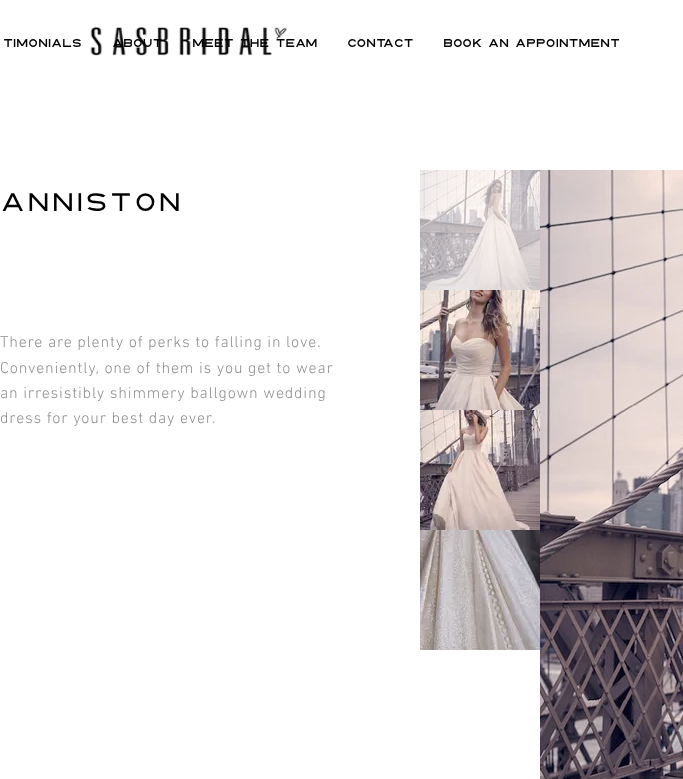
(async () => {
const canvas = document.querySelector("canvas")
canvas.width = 683
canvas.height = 779
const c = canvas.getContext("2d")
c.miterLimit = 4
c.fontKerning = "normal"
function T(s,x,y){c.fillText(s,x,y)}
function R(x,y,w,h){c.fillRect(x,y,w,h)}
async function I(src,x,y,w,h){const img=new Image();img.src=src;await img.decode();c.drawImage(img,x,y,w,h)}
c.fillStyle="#fff"
R(0,0,683,779)
c.font="bold 12px 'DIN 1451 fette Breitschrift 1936'"
c.fillStyle="#000"
T("ABOUT",112,47)
T("MEET THE TEAM",192,47)
await I("1.png",90,27,197,29)
T("TIMONIALS",3,47)
T("CONTACT",347,47)
T("BOOK AN APPOINTMENT",443,47)
c.letterSpacing="1.5px"
c.font="28px 'DIN 1451 fette Breitschrift 1936'"
T("ANNISTON",0,211)
c.letterSpacing="0.8px"
c.font="300 16px 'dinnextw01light'"
c.fillStyle="#8f8f8f"
T("There are plenty of perks to falling in love.",0,347)
T("Conveniently, one of them is you get to wear",0,373)
T("an irresistibly shimmery ballgown wedding",0,398)
T("dress for your best day ever.",0,423)
await I("2.png",420,170,120,120)
await I("3.png",420,290,120,120)
await I("4.png",420,410,120,120)
await I("5.png",420,530,120,120)
await I("6.png",540,170,143,609)
})()
